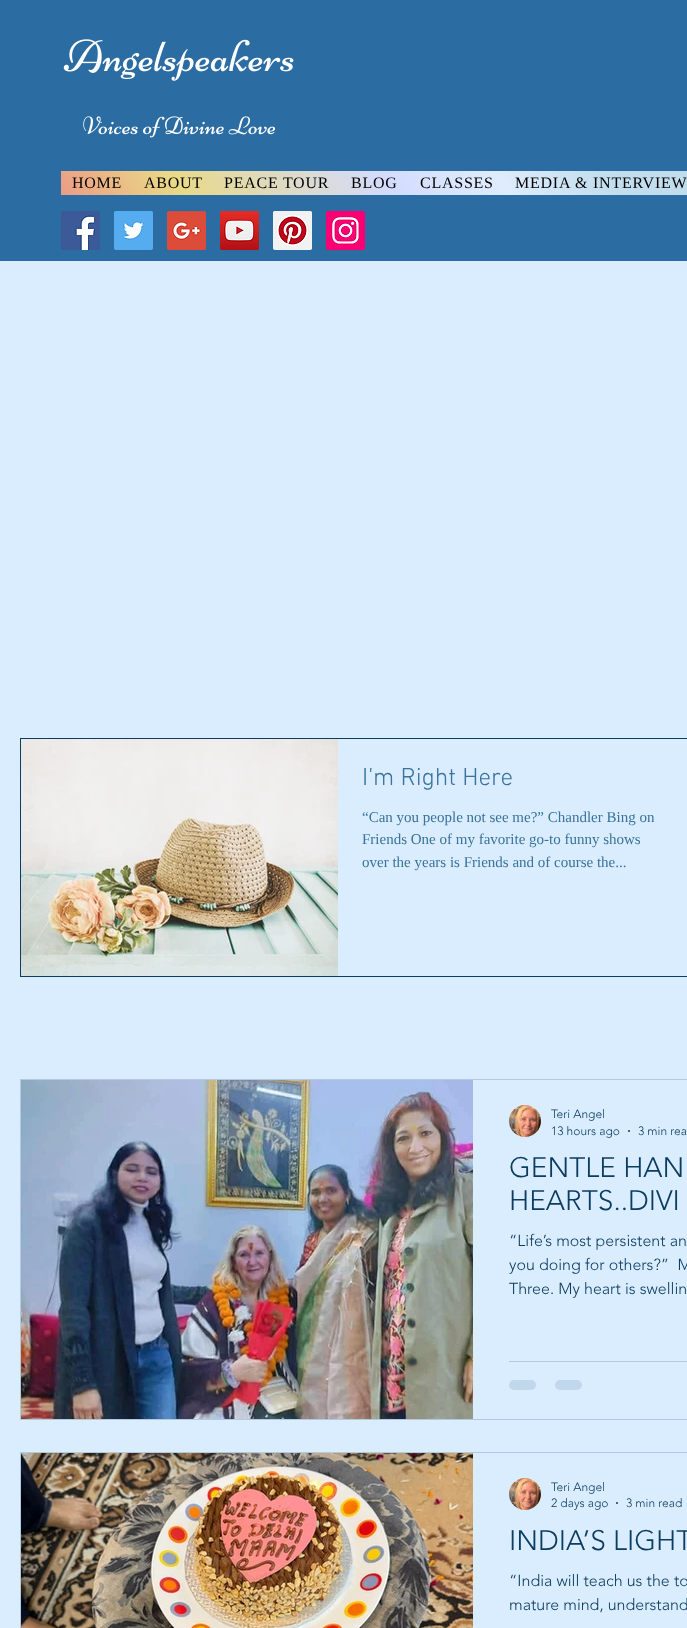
(async () => {
const canvas = document.querySelector("canvas")
canvas.width = 687
canvas.height = 1628
const c = canvas.getContext("2d")
c.miterLimit = 4
c.fontKerning = "normal"
function T(s,x,y){c.fillText(s,x,y)}
function R(x,y,w,h){c.fillRect(x,y,w,h)}
function Q(x,y,w,h,r){c.beginPath();c.roundRect(x,y,w,h,r);c.fill()}
async function I(src,x,y,w,h){const img=new Image();img.src=src;await img.decode();c.drawImage(img,x,y,w,h)}
let gradient
c.fillStyle="#daedff"
R(0,0,687,1628)
c.fillStyle="#2b6ca3"
R(0,0,687,261)
await I("1.png",63,39,40,34)
await I("2.png",102,39,192,42)
await I("3.png",83,116,192,22)
gradient = c.createLinearGradient(185,393,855,-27)
gradient.addColorStop(0,"#ec9c85")
gradient.addColorStop(.13,"#e9d987")
gradient.addColorStop(.36,"#d3dcff")
gradient.addColorStop(.48,"#dfecfd")
gradient.addColorStop(.59,"#c3dfef")
gradient.addColorStop(.76,"#bedbec")
gradient.addColorStop(.86,"#d6e3ff")
gradient.addColorStop(.99,"#a0a0e8")
c.fillStyle = gradient
R(61,171,626,24)
c.letterSpacing="0.75px"
c.font="16px Liberation Serif"
c.fillStyle="#000"
T("HOME",72,188)
T("ABOUT",144,188)
T("PEACE TOUR",224,188)
T("BLOG",351,188)
T("CLASSES",420,188)
T("MEDIA & INTERVIEW",515,188)
await I("4.png",61,211,39,39)
await I("5.png",114,211,39,39)
await I("6.png",167,211,39,39)
await I("7.png",220,211,39,39)
await I("8.png",273,211,39,39)
await I("9.png",326,211,39,39)
c.strokeStyle="#0c3c60"
c.strokeRect(20.5,738.5,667,238)
await I("10.png",21,739,317,237)
c.letterSpacing="0px"
c.font="300 25px 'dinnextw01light'"
c.fillStyle="#39729b"
T("I'm Right Here",362,785)
c.font="15px Liberation Serif"
T("“Can you people not see me?” Chandler Bing on",362,822)
T("Friends One of my favorite go-to funny shows",362,844)
T("over the years is Friends and of course the...",362,867)
c.strokeStyle="#b1cadf"
c.strokeRect(20.5,1079.5,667,340)
await I("11.png",21,1080,452,339)
await I("12.png",509,1105,32,32)
c.font="300 12px 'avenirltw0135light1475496'"
c.fillStyle="#0c3c60"
T("Teri Angel",551,1118)
T("13 hours ago",551,1135)
c.beginPath()
c.arc(629,1131,1,0,7)
c.fill()
T("3 min rea",638,1135)
c.font="300 28px 'avenirltw0135light1475496'"
T("GENTLE HAN",509,1177)
T("HEARTS..DIVI",509,1210)
c.font="300 16px 'avenirltw0135light1475496'"
T("“Life’s most persistent an",509,1246)
T("you doing for others?”  M",509,1270)
T("Three. My heart is swellin",509,1294)
c.fillStyle="#b1cadf"
R(509,1361,178,1)
c.fillStyle="#c1d8ec"
Q(509,1380,27,10,5)
Q(555,1380,27,10,5)
c.strokeRect(20.5,1452.5,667,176)
await I("13.png",21,1453,452,175)
await I("12.png",509,1478,32,32)
c.font="300 12px 'avenirltw0135light1475496'"
c.fillStyle="#0c3c60"
T("Teri Angel",551,1491)
T("2 days ago",551,1507)
c.beginPath()
c.arc(617,1503,1,0,7)
c.fill()
T("3 min read",626,1507)
c.font="300 28px 'avenirltw0135light1475496'"
T("INDIA’S LIGHT",509,1550)
c.font="300 16px 'avenirltw0135light1475496'"
T("“India will teach us the to",509,1586)
T("mature mind, understand",509,1610)
})()
